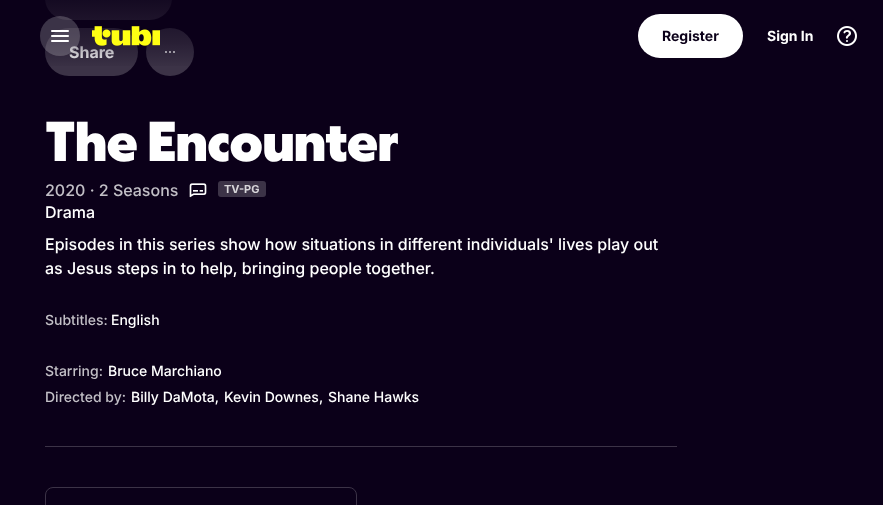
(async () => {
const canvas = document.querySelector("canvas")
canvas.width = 883
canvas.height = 505
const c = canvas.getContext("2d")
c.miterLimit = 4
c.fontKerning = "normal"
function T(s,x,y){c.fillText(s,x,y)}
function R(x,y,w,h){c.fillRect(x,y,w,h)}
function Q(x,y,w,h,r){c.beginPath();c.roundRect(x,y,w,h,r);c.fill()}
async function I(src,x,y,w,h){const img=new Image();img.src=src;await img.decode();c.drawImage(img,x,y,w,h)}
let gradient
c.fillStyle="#0b0019"
R(0,0,883,505)
c.fillStyle="#3c3347"
Q(45,-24,127,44,24)
Q(45,28,93,48,24)
c.font="bold 16px Inter"
c.fillStyle="#fff"
T("Share",69,58)
c.fillStyle="#3c3347"
c.beginPath()
c.arc(170,52,24,0,7)
c.fill()
await I("4.png",165,51,10,2)
gradient = c.createLinearGradient(442,0,442,72)
gradient.addColorStop(.01,"#0b0019cc")
gradient.addColorStop(.59,"#0b001966")
gradient.addColorStop(.78,"#0b001933")
gradient.addColorStop(.96,"#0b001900")
c.fillStyle = gradient
R(45,0,149,66)
c.fillStyle="#ffffff33"
c.beginPath()
c.arc(60,36,20,0,7)
c.fill()
await I("1.png",51,30,18,12)
await I("2.png",92,26,68,20)
c.fillStyle="#fff"
Q(638,14,105,44,22)
c.font="bold 14px Inter"
c.fillStyle="#0b0019"
T("Register",662,41)
c.fillStyle="#fff"
T("Sign In",767,41)
await I("3.png",837,26,20,20)
c.font="900 56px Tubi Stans"
T("The Encounter",45,161)
c.font="500 16px Inter"
c.fillStyle="#c2bfc6"
T("2020 · 2 Seasons",45,196)
await I("5.png",189,183,18,15)
c.fillStyle="#3c3347"
Q(218,181,48,16,3)
c.font="bold 11px Inter"
c.fillStyle="#d8d6da"
T("TV-PG",224,193)
c.font="500 16px Inter"
c.fillStyle="#fff"
T("Drama",45,218)
T("Episodes in this series show how situations in different individuals' lives play out",45,250)
T("as Jesus steps in to help, bringing people together.",45,274)
c.font="500 14px Inter"
c.fillStyle="#c2bfc6"
T("Subtitles:",45,325)
c.fillStyle="#fff"
T("English",111,325)
c.fillStyle="#c2bfc6"
T("Starring:",45,376)
c.fillStyle="#fff"
T("Bruce Marchiano",108,376)
c.fillStyle="#c2bfc6"
T("Directed by:",45,402)
c.fillStyle="#fff"
T("Billy DaMota,",131,402)
T("Kevin Downes,",224,402)
T("Shane Hawks",328,402)
c.fillStyle="#3c3347"
R(45,446,632,1)
c.beginPath()
c.roundRect(45.5,487.5,311,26,7.5)
c.strokeStyle="#3c3347"
c.stroke()
})()
